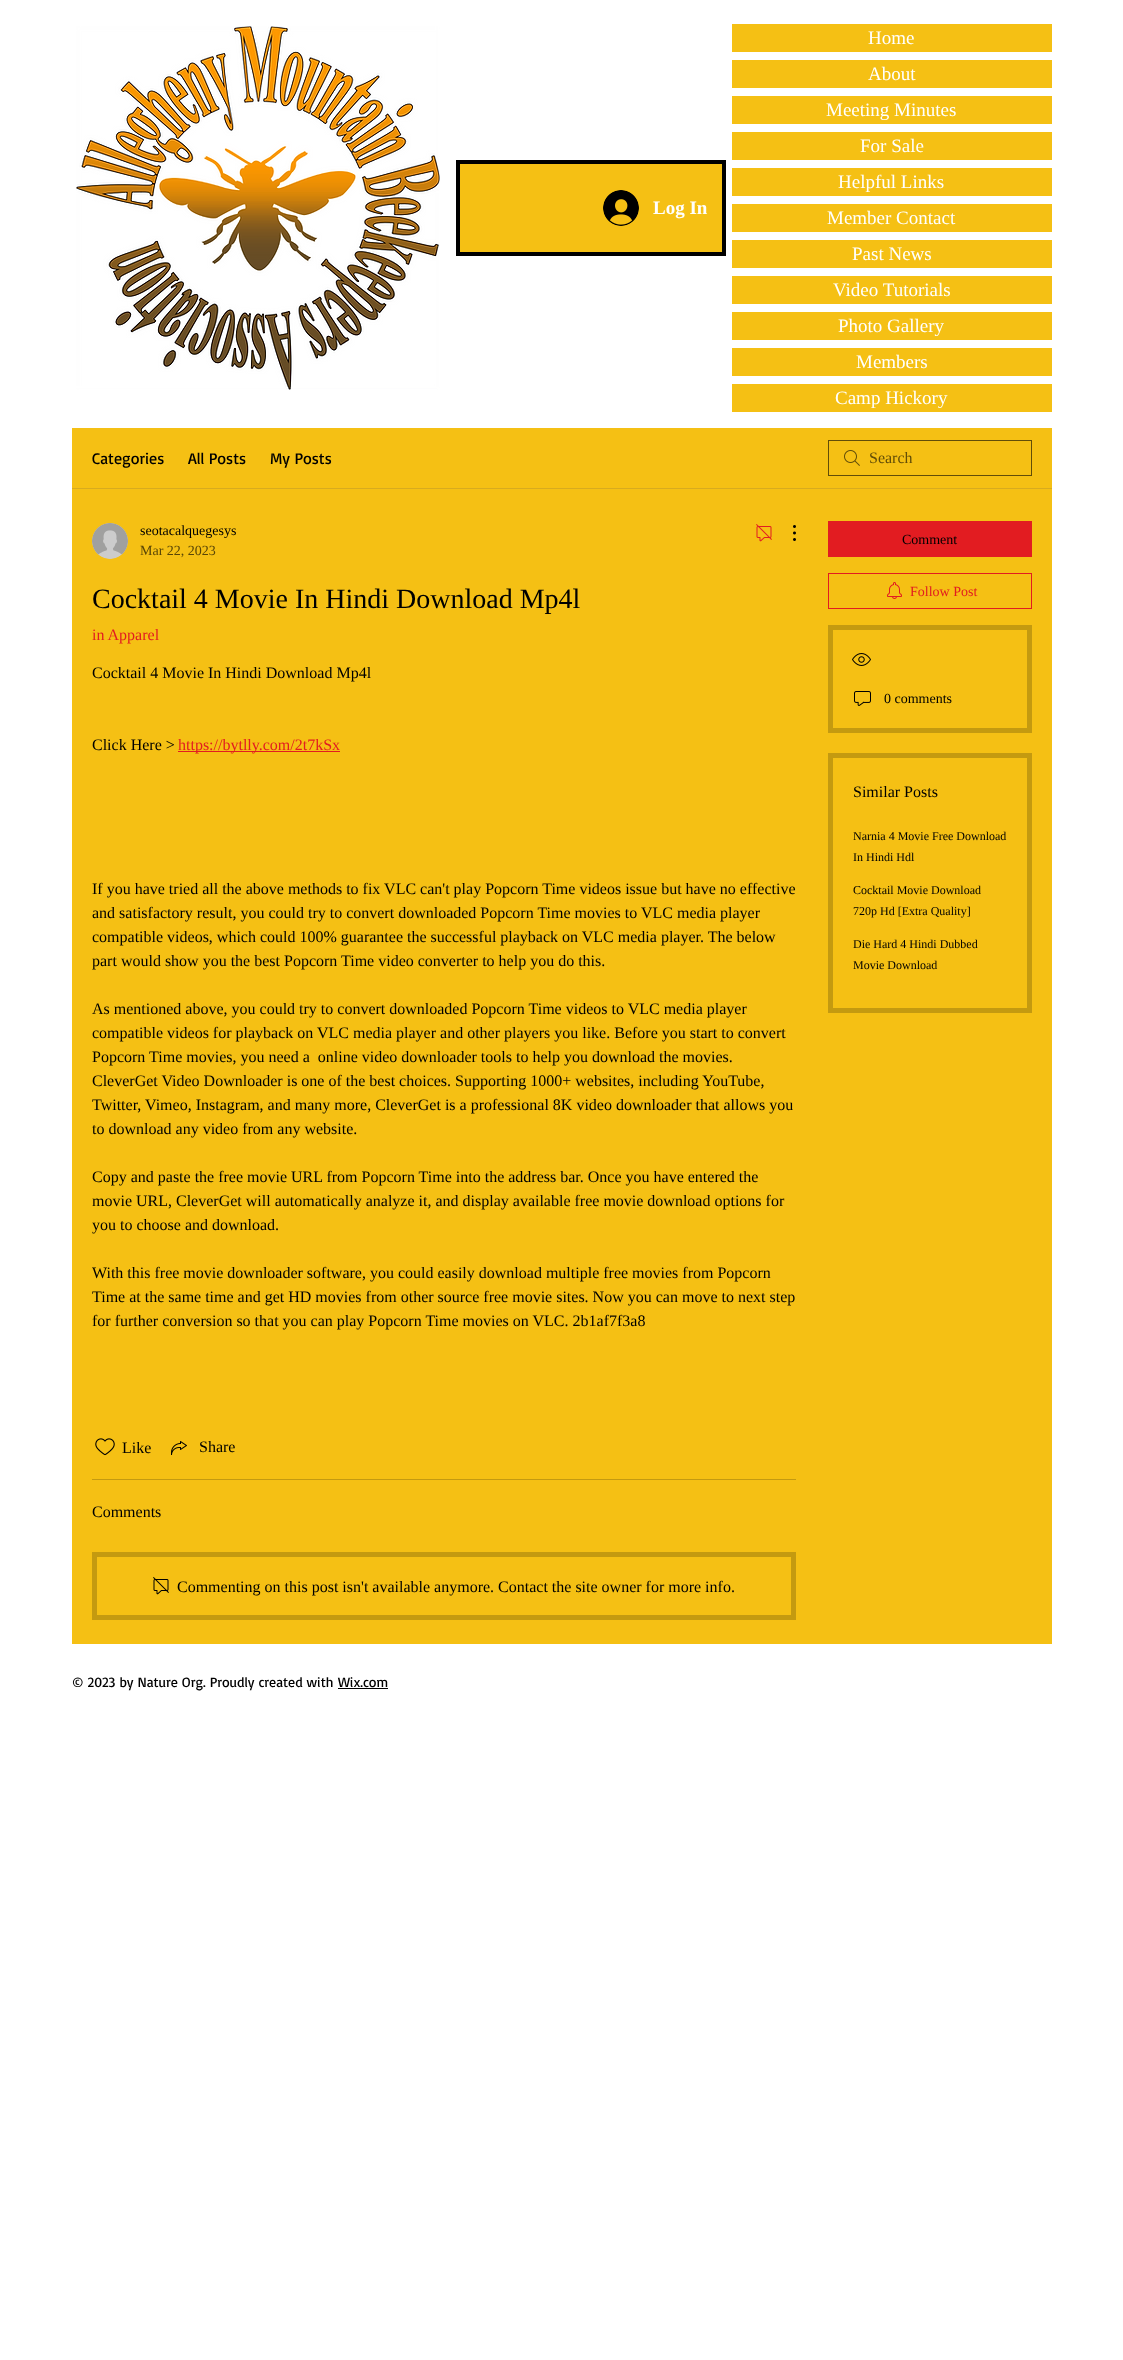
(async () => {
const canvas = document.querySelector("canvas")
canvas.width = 1123
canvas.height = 2360
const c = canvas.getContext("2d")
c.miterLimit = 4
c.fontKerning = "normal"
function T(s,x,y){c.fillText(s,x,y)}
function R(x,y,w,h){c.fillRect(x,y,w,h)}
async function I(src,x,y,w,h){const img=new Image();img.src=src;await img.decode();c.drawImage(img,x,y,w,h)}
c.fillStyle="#fff"
R(0,0,1123,2360)
await I("1.png",76,26,364,364)
c.fillStyle="#f5c014"
c.beginPath()
c.rect(458,162,266,92)
c.fill()
c.strokeStyle="#000"
c.lineWidth=4
c.stroke()
await I("2.png",603,190,36,36)
c.font="bold 19px Liberation Serif"
c.fillStyle="#fff"
T("Log In",653,214)
c.fillStyle="#f5c014"
R(732,24,320,28)
c.font="19px Liberation Serif"
c.fillStyle="#fff"
T("Home",868,44)
c.fillStyle="#f5c014"
R(732,60,320,28)
c.fillStyle="#fff"
T("About",868,80)
c.fillStyle="#f5c014"
R(732,96,320,28)
c.fillStyle="#fff"
T("Meeting Minutes",826,116)
c.fillStyle="#f5c014"
R(732,132,320,28)
c.fillStyle="#fff"
T("For Sale",860,152)
c.fillStyle="#f5c014"
R(732,168,320,28)
c.fillStyle="#fff"
T("Helpful Links",838,188)
c.fillStyle="#f5c014"
R(732,204,320,28)
c.fillStyle="#fff"
T("Member Contact",827,224)
c.fillStyle="#f5c014"
R(732,240,320,28)
c.fillStyle="#fff"
T("Past News",852,260)
c.fillStyle="#f5c014"
R(732,276,320,28)
c.fillStyle="#fff"
T("Video Tutorials",833,296)
c.fillStyle="#f5c014"
R(732,312,320,28)
c.fillStyle="#fff"
T("Photo Gallery",838,332)
c.fillStyle="#f5c014"
R(732,348,320,28)
c.fillStyle="#fff"
T("Members",856,368)
c.fillStyle="#f5c014"
R(732,384,320,28)
c.fillStyle="#fff"
T("Camp Hickory",835,404)
c.fillStyle="#f5c014"
R(72,428,980,1216)
c.fillStyle="#d8ab1e"
R(72,488,980,1)
c.font="16px Basic"
c.fillStyle="#000"
T("Categories",92,464)
T("All Posts",188,464)
T("My Posts",270,464)
await I("3.png",844,450,16,16)
c.strokeStyle="#624d08"
c.lineWidth=1
c.strokeRect(828.5,440.5,203,35)
c.font="16px Liberation Serif"
c.fillStyle="#624d08"
T("Search",869,463)
await I("4.png",92,523,36,36)
c.font="14px Liberation Serif"
c.fillStyle="#000"
T("seotacalquegesys",140,535)
c.fillStyle="#584507"
T("Mar 22, 2023",140,555)
await I("5.png",756,524,16,18)
await I("6.png",793,525,3,16)
c.font="28px Liberation Serif"
c.fillStyle="#000"
T("Cocktail 4 Movie In Hindi Download Mp4l",92,608)
c.font="16px Liberation Serif"
c.fillStyle="#e21c21"
T("in Apparel",92,640)
c.fillStyle="#000"
T("Cocktail 4 Movie In Hindi Download Mp4l",92,678)
T("Click Here >",92,750)
c.fillStyle="#e21c21"
R(178,751,162,1)
T("https://bytlly.com/2t7kSx",178,750)
c.fillStyle="#000"
T("If you have tried all the above methods to fix VLC can't play Popcorn Time videos issue but have no effective",92,894)
T("and satisfactory result, you could try to convert downloaded Popcorn Time movies to VLC media player",92,918)
T("compatible videos, which could 100% guarantee the successful playback on VLC media player. The below",92,942)
T("part would show you the best Popcorn Time video converter to help you do this.",92,966)
T("As mentioned above, you could try to convert downloaded Popcorn Time videos to VLC media player",92,1014)
T("compatible videos for playback on VLC media player and other players you like. Before you start to convert",92,1038)
T("Popcorn Time movies, you need a  online video downloader tools to help you download the movies.",92,1062)
T("CleverGet Video Downloader is one of the best choices. Supporting 1000+ websites, including YouTube,",92,1086)
c.save()
c.beginPath()
c.rect(92,661,704,744)
c.clip()
T("Twitter, Vimeo, Instagram, and many more, CleverGet is a professional 8K video downloader that allows you",92,1110)
c.restore()
T("to download any video from any website.",92,1134)
T("Copy and paste the free movie URL from Popcorn Time into the address bar. Once you have entered the",92,1182)
T("movie URL, CleverGet will automatically analyze it, and display available free movie download options for",92,1206)
T("you to choose and download.",92,1230)
T("With this free movie downloader software, you could easily download multiple free movies from Popcorn",92,1278)
c.save()
c.beginPath()
c.rect(92,661,704,744)
c.clip()
T("Time at the same time and get HD movies from other source free movie sites. Now you can move to next step",92,1302)
c.restore()
T("for further conversion so that you can play Popcorn Time movies on VLC. 2b1af7f3a8",92,1326)
await I("7.png",95,1438,20,18)
T("Like",122,1453)
await I("8.png",171,1441,16,14)
T("Share",199,1452)
c.fillStyle="#c49a10"
R(92,1479,704,1)
c.fillStyle="#000"
T("Comments",92,1517)
c.strokeStyle="#c49a10"
c.lineWidth=5
c.strokeRect(94.5,1554.5,699,63)
await I("9.png",153,1577,16,18)
T("Commenting on this post isn't available anymore. Contact the site owner for more info.",177,1592)
c.fillStyle="#e21c21"
R(828,521,204,36)
c.font="14px Liberation Serif"
c.fillStyle="#000"
T("Comment",902,544)
c.strokeStyle="#e21c21"
c.lineWidth=1
c.strokeRect(828.5,573.5,203,35)
await I("10.png",887,582,15,17)
c.fillStyle="#e21c21"
T("Follow Post",910,596)
c.strokeStyle="#c49a10"
c.lineWidth=5
c.strokeRect(830.5,627.5,199,103)
await I("11.png",852,653,19,13)
await I("12.png",854,691,17,15)
c.fillStyle="#000"
T("0 comments",884,703)
c.strokeRect(830.5,755.5,199,255)
c.font="16px Liberation Serif"
T("Similar Posts",853,797)
c.font="12px Liberation Serif"
T("Narnia 4 Movie Free Download",853,840)
T("In Hindi Hdl",853,861)
T("Cocktail Movie Download",853,894)
T("720p Hd [Extra Quality]",853,915)
T("Die Hard 4 Hindi Dubbed",853,948)
T("Movie Download",853,969)
c.font="14px Basic"
T("© 2023 by Nature Org. Proudly created with",72,1687)
T("Wix.com",338,1687)
R(338,1688,50,1)
})()
